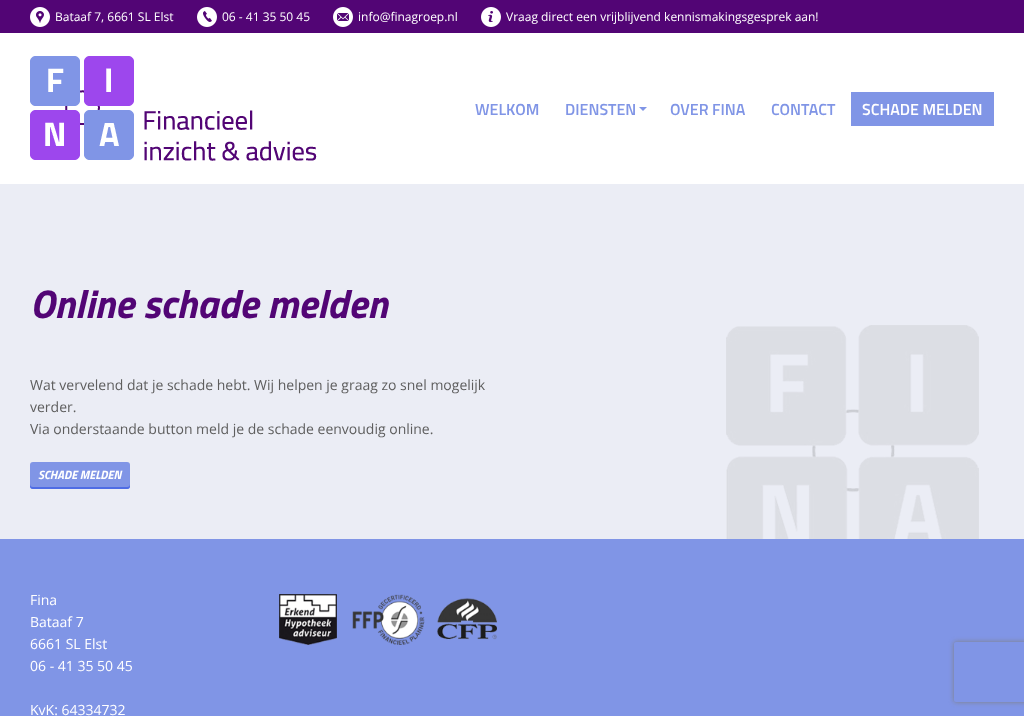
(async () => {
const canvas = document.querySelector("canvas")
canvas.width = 1024
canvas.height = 716
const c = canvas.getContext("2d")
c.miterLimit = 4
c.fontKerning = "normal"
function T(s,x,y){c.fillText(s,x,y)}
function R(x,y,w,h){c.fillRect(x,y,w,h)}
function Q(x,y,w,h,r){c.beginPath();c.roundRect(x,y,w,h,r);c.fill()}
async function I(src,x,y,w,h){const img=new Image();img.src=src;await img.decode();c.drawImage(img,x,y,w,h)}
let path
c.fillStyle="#ebedf5"
R(0,0,1024,716)
await I("1.png",726,325,253,214)
c.fillStyle="#520575"
R(0,0,1024,33)
await I("2.png",30,7,20,20)
c.font="12px Open Sans"
c.fillStyle="#fff"
T("Bataaf 7, 6661 SL Elst",55,21)
await I("3.png",197,7,20,20)
T("06 - 41 35 50 45",222,21)
await I("4.png",333,7,20,20)
T("info@finagroep.nl",358,21)
await I("5.png",481,7,20,20)
T("Vraag direct een vrijblijvend kennismakingsgesprek aan!",506,21)
R(0,33,1024,151)
await I("6.png",30,56,287,105)
c.font="600 16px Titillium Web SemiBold"
c.fillStyle="#8095e6"
T("WELKOM",475,115)
T("DIENSTEN",565,115)
path = new Path2D("M639 107h8l-4 4z")
c.fill(path)
T("OVER FINA",670,115)
T("CONTACT",771,115)
R(851,92,143,34)
c.fillStyle="#fff"
T("SCHADE MELDEN",862,115)
c.font="italic bold 40px Titillium Web"
c.fillStyle="#520575"
T("Online schade melden",30,318)
c.font="14px Open Sans"
c.fillStyle="#5e5e5e"
T("Wat vervelend dat je schade hebt. Wij helpen je graag zo snel mogelijk",30,390)
T("verder.",30,412)
T("Via onderstaande button meld je de schade eenvoudig online.",30,434)
c.fillStyle="#8095e6"
Q(30,462,100,27,3)
c.fillStyle="#4e6ce5"
path = new Path2D("M30 484v2c0 2 1 3 3 3h94c2 0 3-1 3-3v-2c0 2-1 3-3 3h-94c-2 0-3-1-3-3z")
c.fill(path)
c.font="italic bold 12px Titillium Web"
c.fillStyle="#fff"
T("SCHADE MELDEN",38,479)
c.fillStyle="#8095e6"
R(0,539,1024,177)
c.font="14px Open Sans"
c.fillStyle="#fff"
T("Fina",30,605)
T("Bataaf 7",30,627)
T("6661 SL Elst",30,649)
T("06 - 41 35 50 45",30,671)
T("KvK: 64334732",30,715)
await I("7.png",279,594,218,51)
c.save()
path = new Path2D("M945 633h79v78h-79zm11 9h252c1 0 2 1 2 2v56c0 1-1 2-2 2h-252c-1 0-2-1-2-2v-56c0-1 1-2 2-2z")
c.clip(path,"evenodd")
c.fillStyle="#808080"
c.filter="blur(2.5px)"
c.beginPath()
c.roundRect(954,642,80,60,2)
c.fill()
c.filter="none"
c.restore()
})()
